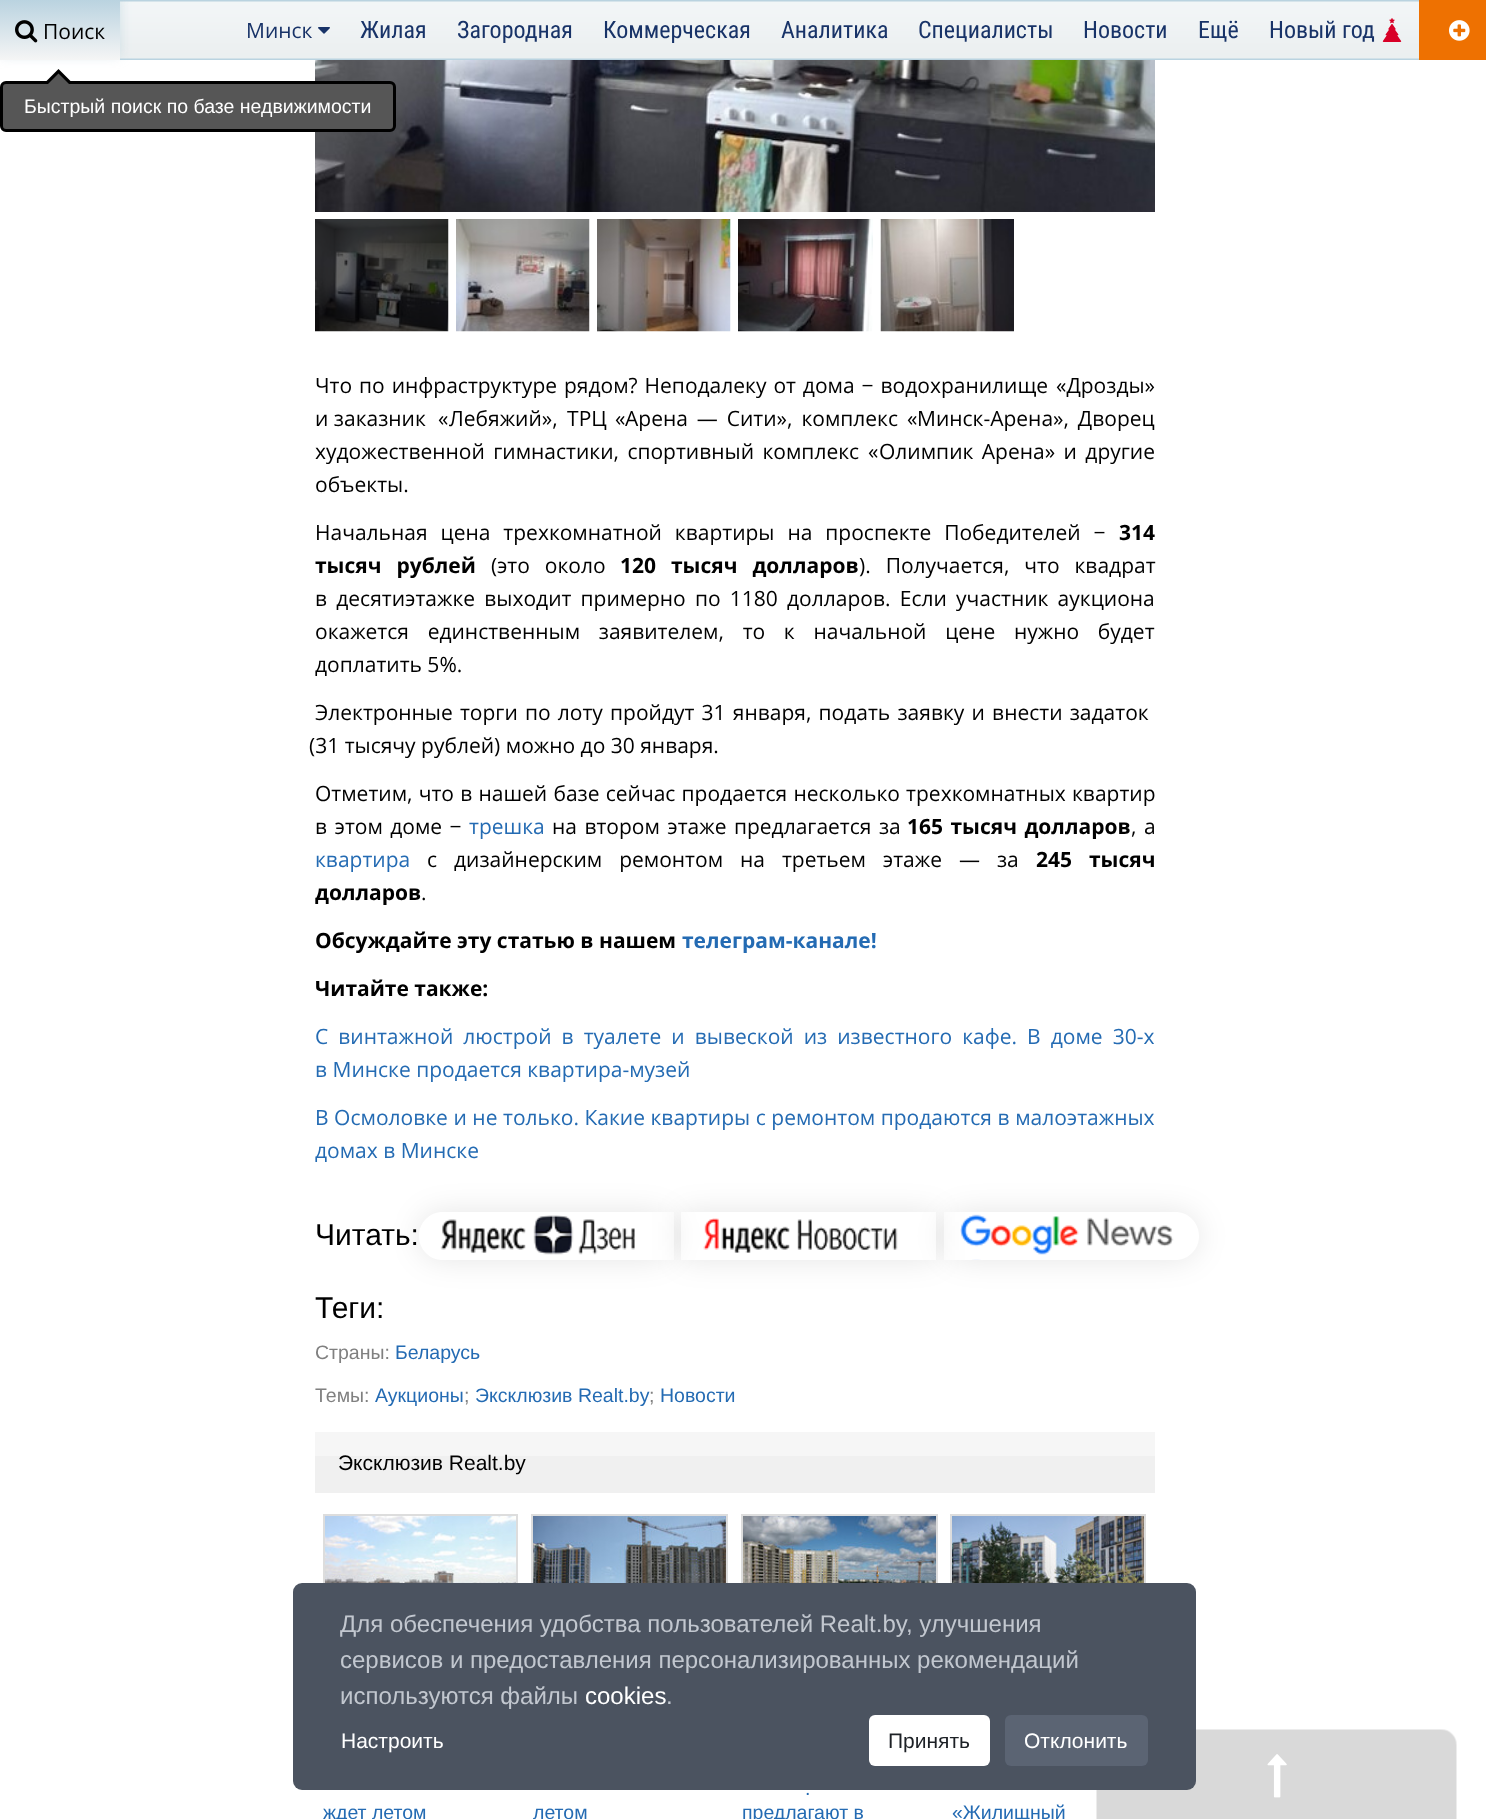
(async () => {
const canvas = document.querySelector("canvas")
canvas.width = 1486
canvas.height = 1819
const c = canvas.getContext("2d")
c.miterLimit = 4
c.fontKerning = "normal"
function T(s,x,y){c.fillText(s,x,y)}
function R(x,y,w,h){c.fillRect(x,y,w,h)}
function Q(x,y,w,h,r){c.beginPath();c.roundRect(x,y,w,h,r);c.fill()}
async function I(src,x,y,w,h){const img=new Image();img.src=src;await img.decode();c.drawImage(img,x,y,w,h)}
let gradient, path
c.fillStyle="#fff"
R(0,0,1486,1819)
await I("1.png",120,0,1299,60)
c.fillStyle="#b2cbda80"
c.filter="blur(6px)"
c.beginPath()
c.rect(0,-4,120,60)
c.fill()
c.filter="none"
gradient = c.createLinearGradient(60,0,60,60)
gradient.addColorStop(0,"#bad3e0")
gradient.addColorStop(1,"#f5f5f5")
c.fillStyle = gradient
R(0,0,120,60)
await I("2.png",15,20,23,23)
c.font="21px Open Sans"
c.fillStyle="#000"
T("Поиск",43,39)
c.fillStyle="#183368"
T("Минск",246,38)
await I("3.png",318,27,12,7)
c.font="24px Roboto Condensed"
T("Жилая",360,38)
T("Загородная",457,38)
T("Коммерческая",603,38)
T("Аналитика",781,38)
T("Специалисты",918,38)
T("Новости",1083,38)
T("Ещё",1198,38)
T("Новый год",1269,38)
await I("4.png",1382,18,20,24)
c.fillStyle="#ee7101"
R(1419,0,67,60)
await I("5.png",1449,20,21,21)
await I("6.png",315,60,840,152)
await I("7.png",315,219,134,113)
await I("8.png",456,219,134,113)
await I("9.png",597,219,134,113)
await I("10.png",738,219,135,113)
await I("11.png",880,219,134,113)
c.wordSpacing="1.5px"
c.font="21px Open Sans"
c.fillStyle="#000"
T("Что по инфраструктуре рядом? Неподалеку от дома − водохранилище",315,393)
c.wordSpacing="0px"
T("«Дрозды»",1056,393)
T("и заказник",315,426)
T("«",438,426)
c.wordSpacing="4px"
T("Лебяжий», ТРЦ",449,426)
c.wordSpacing="0px"
T("«",615,426)
c.wordSpacing="3.5px"
T("Арена — Сити», комплекс",625,426)
c.wordSpacing="0px"
T("«",907,426)
c.wordSpacing="3.5px"
T("Минск-Арена», Дворец",917,426)
c.wordSpacing="3px"
T("художественной гимнастики, спортивный комплекс",315,459)
c.wordSpacing="0px"
T("«",868,459)
c.wordSpacing="3px"
T("Олимпик Арена» и другие",879,459)
c.wordSpacing="0px"
T("объекты.",315,492)
c.wordSpacing="7.5px"
T("Начальная цена трехкомнатной квартиры на проспекте Победителей −",315,540)
c.wordSpacing="0px"
c.font="bold 21px Open Sans"
T("314",1119,540)
c.wordSpacing="9.5px"
T("тысяч рублей",315,573)
c.wordSpacing="0px"
c.font="21px Open Sans"
T("(",491,573)
c.wordSpacing="9.5px"
T("это около",497,573)
c.font="bold 21px Open Sans"
T("120 тысяч долларов",620,573)
c.font="21px Open Sans"
T("). Получается, что квадрат",859,573)
c.wordSpacing="3.75px"
T("в десятиэтажке выходит примерно по 1180 долларов. Если участник аукциона",315,606)
c.wordSpacing="13.25px"
T("окажется единственным заявителем, то к начальной цене нужно будет",315,639)
c.wordSpacing="0px"
T("доплатить 5%.",315,672)
c.wordSpacing="1.75px"
T("Электронные торги по лоту пройдут 31 января, подать заявку и внести задаток",315,720)
c.wordSpacing="0px"
T("(31 тысячу рублей) можно до 30 января.",309,753)
c.wordSpacing="0.75px"
T("Отметим, что в нашей базе сейчас продается несколько трехкомнатных квартир",315,801)
c.wordSpacing="2px"
T("в этом доме −",315,834)
c.wordSpacing="0px"
c.fillStyle="#246bb3"
T("трешка",469,834)
c.wordSpacing="2px"
c.fillStyle="#000"
T("на втором этаже предлагается за",552,834)
c.font="bold 21px Open Sans"
T("165 тысяч долларов",907,834)
c.font="21px Open Sans"
T(", а",1131,834)
c.wordSpacing="0px"
c.fillStyle="#246bb3"
T("квартира",315,867)
c.wordSpacing="11.5px"
c.fillStyle="#000"
T("с дизайнерским ремонтом на третьем этаже — за",427,867)
c.font="bold 21px Open Sans"
T("245 тысяч",1036,867)
c.wordSpacing="0px"
T("долларов",315,900)
c.font="21px Open Sans"
T(".",421,900)
c.font="bold 21px Open Sans"
T("Обсуждайте эту статью в нашем",315,948)
c.fillStyle="#246bb3"
T("телеграм-канале!",682,948)
c.fillStyle="#000"
T("Читайте также:",315,996)
c.wordSpacing="4.6px"
c.font="21px Open Sans"
c.fillStyle="#246bb3"
T("C винтажной люстрой в туалете и вывеской из известного кафе. В доме 30-х",315,1044)
c.wordSpacing="0px"
T("в Минске продается квартира-музей",315,1077)
c.wordSpacing="0.1px"
T("В Осмоловке и не только. Какие квартиры с ремонтом продаются в малоэтажных",315,1125)
c.wordSpacing="0px"
T("домах в Минске",315,1158)
c.font="30px Liberation Sans"
c.fillStyle="#000"
T("Читать:",315,1245)
c.save()
path = new Path2D("M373 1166h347v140h-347zm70 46h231v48h-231c-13.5 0-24-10.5-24-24c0-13.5 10.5-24 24-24z")
c.clip(path,"evenodd")
c.fillStyle="#0000001a"
c.filter="blur(15px)"
c.beginPath()
c.roundRect(419,1212,255,48,24)
c.fill()
c.filter="none"
c.restore()
await I("12.png",440,1215,195,40)
c.save()
path = new Path2D("M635 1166h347v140h-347zm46 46h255v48h-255z")
c.clip(path,"evenodd")
c.fillStyle="#0000001a"
c.filter="blur(15px)"
c.beginPath()
c.rect(681,1212,255,48)
c.fill()
c.filter="none"
c.restore()
await I("13.png",703,1218,195,35)
c.save()
path = new Path2D("M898 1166h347v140h-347zm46 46h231c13.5 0 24 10.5 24 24c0 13.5-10.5 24-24 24h-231z")
c.clip(path,"evenodd")
c.fillStyle="#0000001a"
c.filter="blur(15px)"
c.beginPath()
c.roundRect(944,1212,255,48,24)
c.fill()
c.filter="none"
c.restore()
await I("14.png",960,1214,214,46)
T("Теги:",315,1318)
c.font="19.5px Liberation Sans"
c.fillStyle="#808080"
T("Страны:",315,1359)
c.fillStyle="#246bb3"
T("Беларусь",395,1359)
c.fillStyle="#808080"
T("Темы:",315,1402)
c.fillStyle="#246bb3"
T("Аукционы",375,1402)
c.fillStyle="#808080"
T(";",464,1402)
c.fillStyle="#246bb3"
T("Эксклюзив Realt.by",475,1402)
c.fillStyle="#808080"
T(";",649,1402)
c.fillStyle="#246bb3"
T("Новости",660,1402)
c.fillStyle="#f0f0f0"
R(315,1456,840,37)
c.fillStyle="#f6f6f6"
R(315,1432,840,24)
c.font="21px Liberation Sans"
c.fillStyle="#000"
T("Эксклюзив Realt.by",338,1470)
await I("15.png",325,1516,191,67)
c.strokeStyle="#ddd"
c.lineWidth=2
c.strokeRect(324,1515,193,151)
c.font="19.5px Liberation Sans"
c.fillStyle="#246bb3"
T("ждет летом",323,1819)
await I("16.png",533,1516,193,67)
c.strokeRect(532,1515,195,151)
T("летом",533,1819)
await I("17.png",743,1516,193,67)
c.strokeRect(742,1515,195,151)
T(".",805,1795)
T("предлагают в",742,1819)
await I("18.png",952,1516,192,67)
c.strokeRect(951,1515,194,151)
T("«Жилищный",952,1819)
c.fillStyle="#565656"
c.beginPath()
c.roundRect(1.5,82.5,393,48,4.5)
c.fill()
c.strokeStyle="#000"
c.lineWidth=3
c.stroke()
c.fillStyle="#000"
path = new Path2D("M73.5 84h-30l15-15z")
c.fill(path)
c.save()
c.beginPath()
c.rect(44,69,30,15)
c.clip()
c.fillStyle="#565656"
path = new Path2D("M73.5 88.5h-30l15-15z")
c.fill(path)
c.restore()
c.fillStyle="#fff"
T("Быстрый поиск по базе недвижимости",24,113)
await I("19.png",1096,1729,361,90)
c.fillStyle="#4b5360"
Q(293,1583,903,207,9)
c.font="24px Liberation Sans"
c.fillStyle="#c2c7cf"
T("Для обеспечения удобства пользователей Realt.by, улучшения",340,1632)
T("сервисов и предоставления персонализированных рекомендаций",340,1668)
T("используются файлы",340,1704)
c.fillStyle="#fff"
T("cookies",585,1704)
c.fillStyle="#c2c7cf"
T(".",666,1704)
c.font="21px Liberation Sans"
c.fillStyle="#fff"
T("Настроить",341,1748)
Q(869,1715,121,51,6)
c.fillStyle="#1d2126"
T("Принять",888,1748)
c.fillStyle="#5b6473"
Q(1005,1715,143,51,6)
c.fillStyle="#fff"
T("Отклонить",1024,1748)
await I("20.png",1267,1754,20,44)
})()
